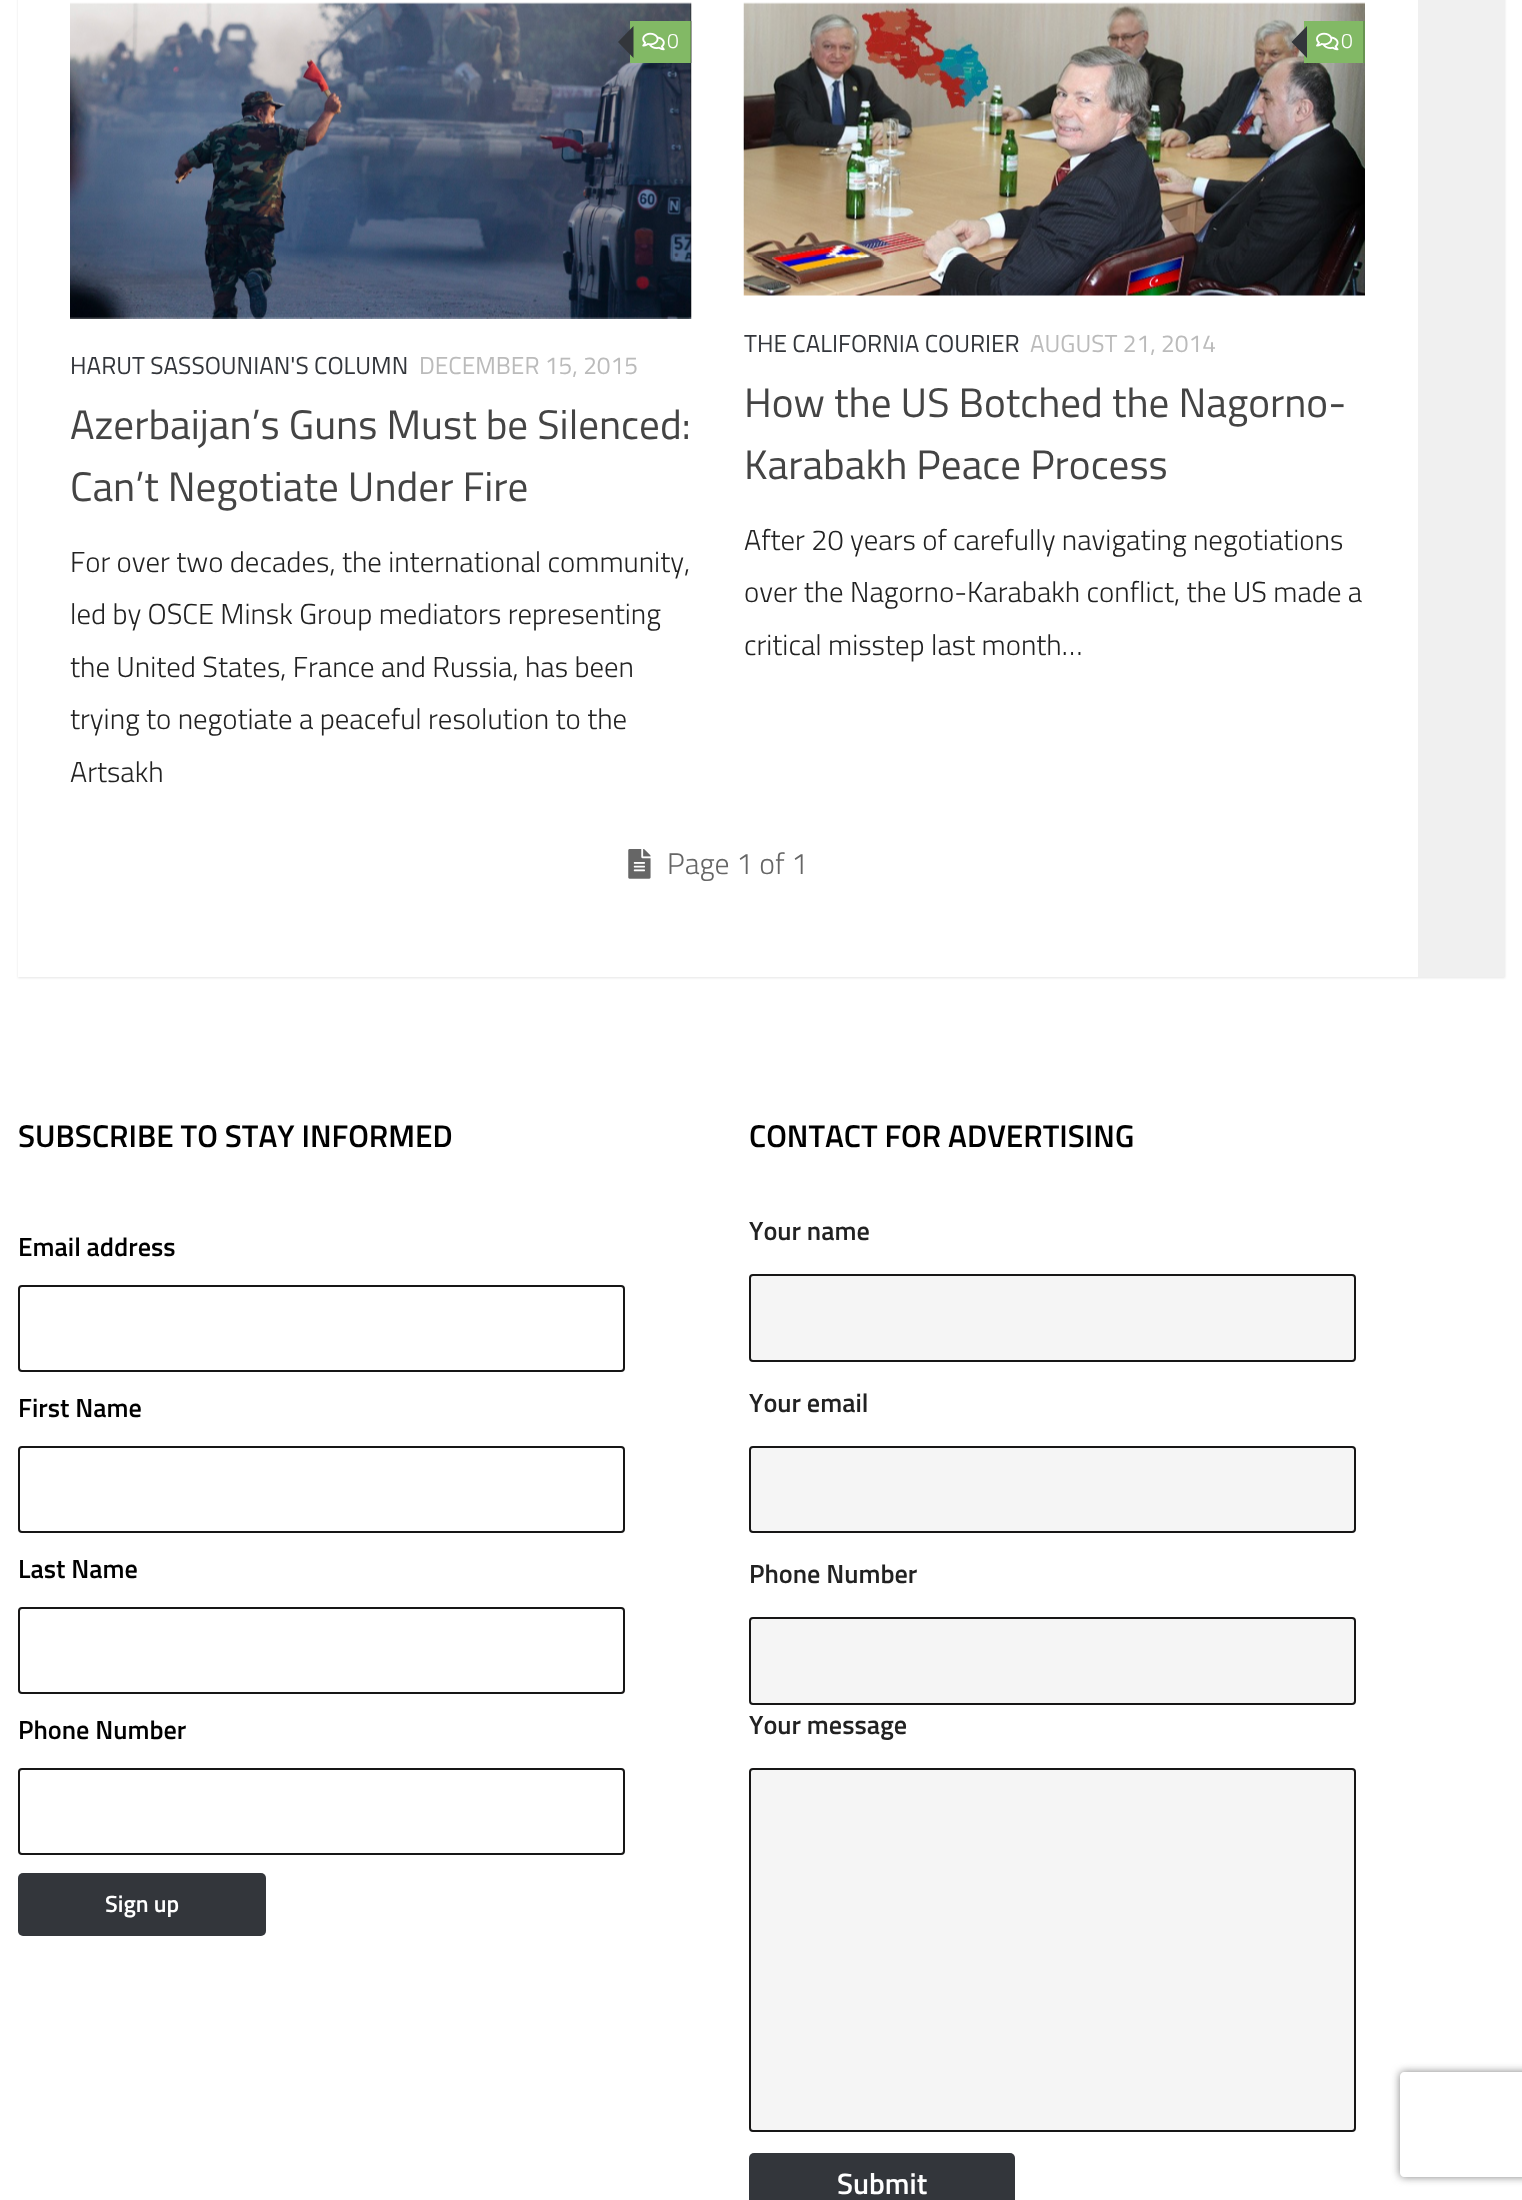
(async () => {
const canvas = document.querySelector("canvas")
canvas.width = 1522
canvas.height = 2200
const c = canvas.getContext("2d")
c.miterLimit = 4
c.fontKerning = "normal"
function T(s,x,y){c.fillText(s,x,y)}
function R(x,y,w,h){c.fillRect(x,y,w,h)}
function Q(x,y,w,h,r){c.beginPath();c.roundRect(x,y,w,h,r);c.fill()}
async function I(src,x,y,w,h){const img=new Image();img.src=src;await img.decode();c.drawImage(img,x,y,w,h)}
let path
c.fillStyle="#fff"
R(0,0,1522,2200)
c.fillStyle="#0000001a"
c.filter="blur(1px)"
c.beginPath()
c.rect(18,-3,1487,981)
c.fill()
c.filter="none"
c.fillStyle="#fff"
R(18,0,1400,977)
await I("1.png",70,2,622,317)
c.fillStyle="#82b965"
R(630,21,61,42)
c.fillStyle="#00000033"
R(690,21,2,42)
c.fillStyle="#33363b"
path = new Path2D("M633.5 26v32l-15.5-16z")
c.fill(path)
await I("2.png",642,32,23,19)
c.font="300 21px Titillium"
c.fillStyle="#fff"
T("0",667,48)
c.font="24.5px Titillium"
c.fillStyle="#33363b"
T("HARUT SASSOUNIAN'S COLUMN",70,374)
c.fillStyle="#bbb"
T("DECEMBER 15, 2015",419,374)
c.font="41.25px Titillium"
c.fillStyle="#444"
T("Azerbaijan’s Guns Must be Silenced:",70,439)
T("Can’t Negotiate Under Fire",70,501)
c.font="300 28.9px Titillium"
c.fillStyle="#222"
T("For over two decades, the international community,",70,572)
T("led by OSCE Minsk Group mediators representing",70,624)
T("the United States, France and Russia, has been",70,677)
T("trying to negotiate a peaceful resolution to the",70,729)
T("Artsakh",70,782)
await I("3.png",743,2,622,294)
c.fillStyle="#82b965"
R(1304,21,59,42)
c.fillStyle="#689451"
R(1363,21,2,42)
c.fillStyle="#33363b"
path = new Path2D("M1307 26v32l-15.5-16z")
c.fill(path)
await I("4.png",1316,32,23,19)
c.font="300 21px Titillium"
c.fillStyle="#fff"
T("0",1341,48)
c.font="24.5px Titillium"
c.fillStyle="#33363b"
T("THE CALIFORNIA COURIER",744,352)
c.fillStyle="#bbb"
T("AUGUST 21, 2014",1030,352)
c.font="41.25px Titillium"
c.fillStyle="#444"
T("How the US Botched the Nagorno-",744,417)
T("Karabakh Peace Process",744,479)
c.font="300 28.9px Titillium"
c.fillStyle="#222"
T("After 20 years of carefully navigating negotiations",744,550)
T("over the Nagorno-Karabakh conflict, the US made a",744,602)
T("critical misstep last month…",744,655)
await I("5.png",628,849,23,30)
c.font="300 29.75px Titillium"
c.fillStyle="#666"
T("Page 1 of 1",667,874)
c.fillStyle="#f0f0f0"
R(1418,0,87,977)
c.font="600 31.5px Titillium"
c.fillStyle="#000"
T("SUBSCRIBE TO STAY INFORMED",18,1147)
c.font="600 26.25px Titillium"
T("Email address",18,1256)
c.beginPath()
c.roundRect(19,1286,605,85,3)
c.strokeStyle="#171616"
c.lineWidth=2
c.stroke()
T("First Name",18,1417)
c.beginPath()
c.roundRect(19,1447,605,85,3)
c.stroke()
T("Last Name",18,1578)
c.beginPath()
c.roundRect(19,1608,605,85,3)
c.stroke()
T("Phone Number",18,1739)
c.beginPath()
c.roundRect(19,1769,605,85,3)
c.stroke()
c.fillStyle="#33363b"
Q(18,1873,248,63,5)
c.font="600 23.5px Titillium"
c.fillStyle="#fff"
T("Sign up",105,1912)
c.font="600 31.5px Titillium"
c.fillStyle="#000"
T("CONTACT FOR ADVERTISING",749,1147)
c.font="600 26.25px Titillium"
c.fillStyle="#222"
T("Your name",749,1240)
c.fillStyle="#f5f5f5"
c.beginPath()
c.roundRect(750,1275,605,86,3)
c.fill()
c.stroke()
c.fillStyle="#222"
T("Your email",749,1412)
c.fillStyle="#f5f5f5"
c.beginPath()
c.roundRect(750,1447,605,85,3)
c.fill()
c.stroke()
c.fillStyle="#222"
T("Phone Number",749,1583)
c.fillStyle="#f5f5f5"
c.beginPath()
c.roundRect(750,1618,605,86,3)
c.fill()
c.stroke()
c.fillStyle="#222"
T("Your message",749,1734)
c.fillStyle="#f5f5f5"
c.beginPath()
c.roundRect(750,1769,605,362,3)
c.fill()
c.stroke()
c.fillStyle="#33363b"
Q(749,2153,266,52,5)
c.font="600 29.5px Titillium"
c.fillStyle="#fff"
T("Submit",837,2194)
c.save()
path = new Path2D("M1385 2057h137v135h-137zm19 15h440c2 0 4 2 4 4v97c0 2-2 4-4 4h-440c-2 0-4-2-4-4v-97c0-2 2-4 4-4z")
c.clip(path,"evenodd")
c.fillStyle="#808080"
c.filter="blur(4.5px)"
c.beginPath()
c.roundRect(1400,2072,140,105,4)
c.fill()
c.filter="none"
c.restore()
})()
